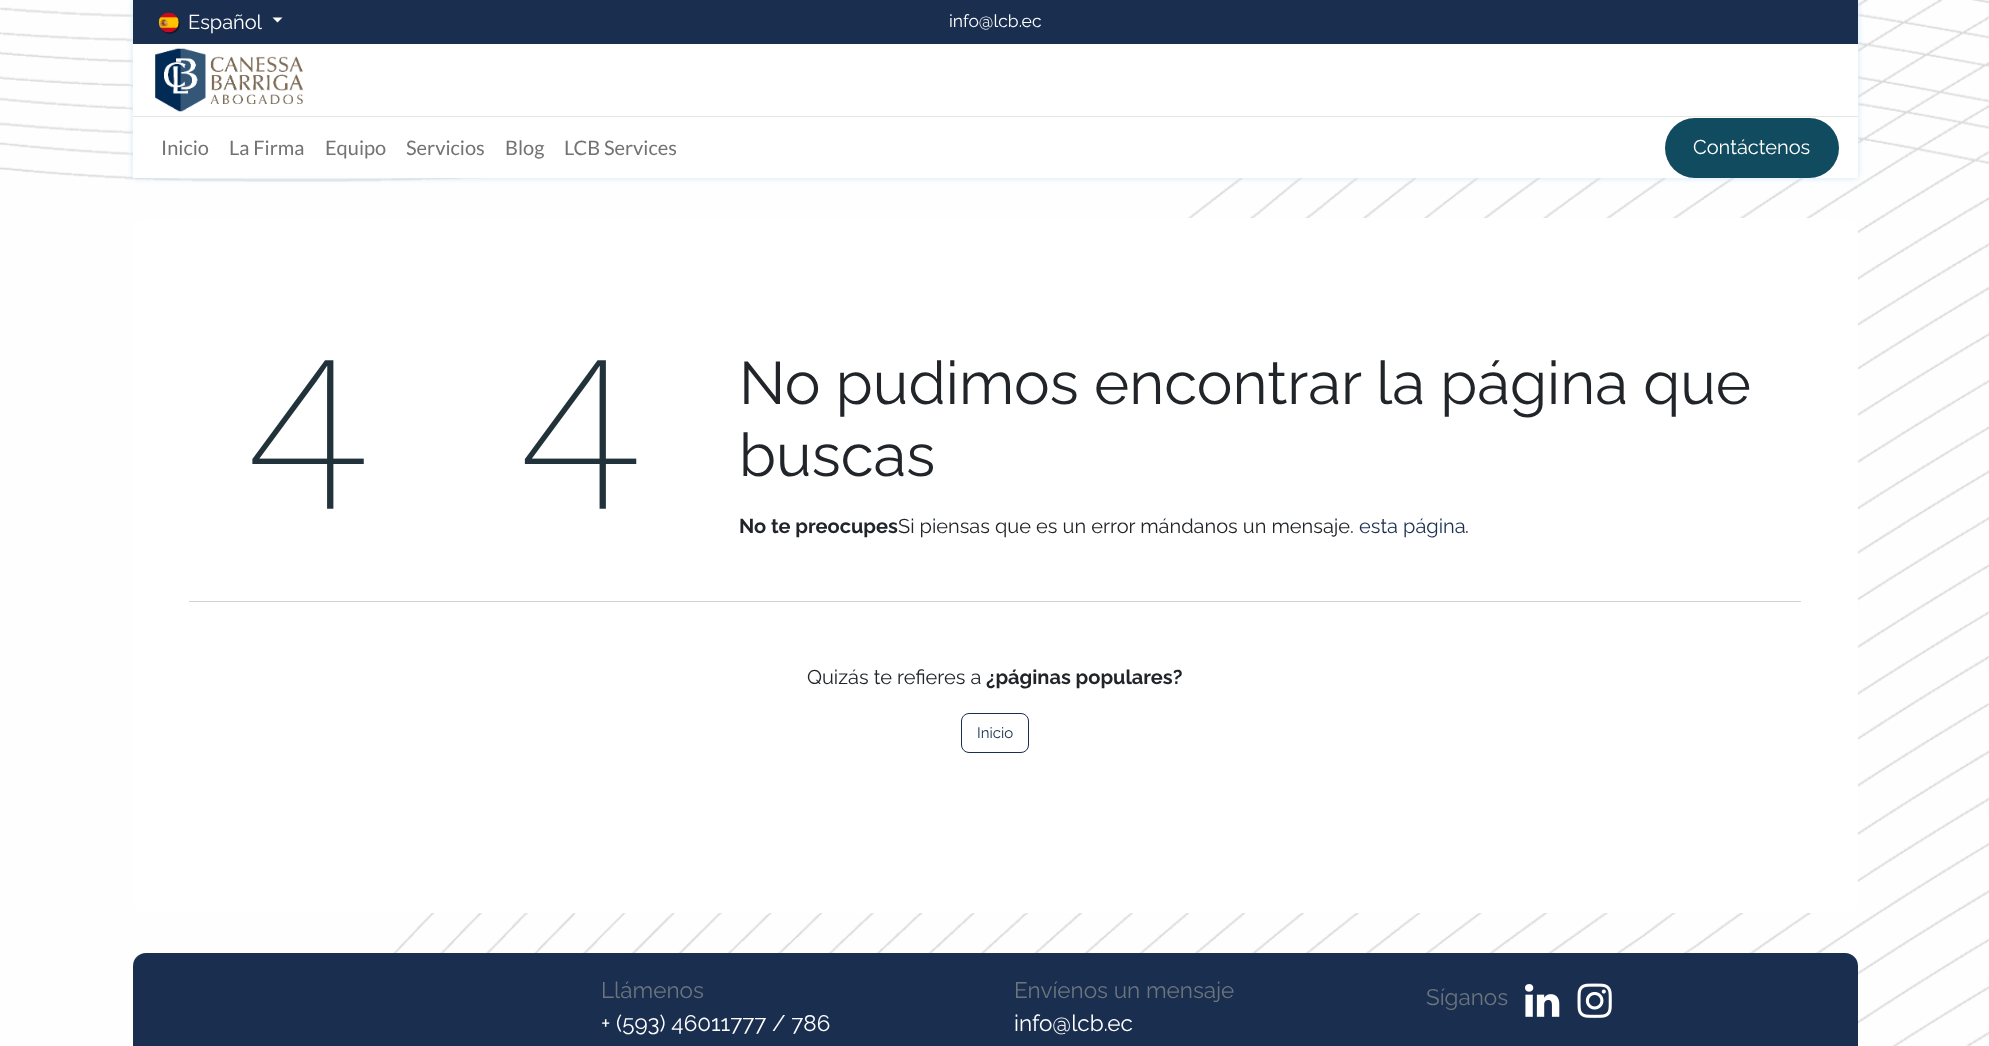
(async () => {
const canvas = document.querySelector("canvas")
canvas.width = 1989
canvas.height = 1046
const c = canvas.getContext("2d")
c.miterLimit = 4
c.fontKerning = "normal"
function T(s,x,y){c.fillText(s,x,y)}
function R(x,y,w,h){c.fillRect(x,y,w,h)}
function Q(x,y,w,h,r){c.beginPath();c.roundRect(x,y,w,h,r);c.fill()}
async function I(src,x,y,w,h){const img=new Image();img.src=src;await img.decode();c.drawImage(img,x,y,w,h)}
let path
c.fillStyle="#fff"
R(0,0,1989,1046)
await I("1.png",0,0,1989,1046)
c.fillStyle="#cee7f7"
c.filter="blur(3px)"
c.beginPath()
c.rect(133,0,1725,178)
c.fill()
c.filter="none"
c.fillStyle="#fff"
R(133,44,1725,134)
c.fillStyle="#1a2e4f"
R(133,0,1725,44)
c.fillStyle="#0000006e"
c.filter="blur(0.5px)"
c.beginPath()
c.roundRect(160,14,20,20,10)
c.fill()
c.filter="none"
await I("2.png",158,12,21,21)
c.font="20px Raleway"
c.fillStyle="#fff"
T("Español",188,29)
path = new Path2D("M272.5 17.5h10l-5 5z")
c.fill(path)
c.font="17.5px Raleway"
T("info@lcb.ec",949,27)
await I("3.png",155,48,149,64)
c.fillStyle="#e6e6e6"
R(133,116,1725,1)
c.font="20px Lato"
c.fillStyle="#737373"
T("Inicio",161,155)
T("La Firma",229,155)
T("Equipo",325,155)
T("Servicios",406,155)
T("Blog",505,155)
T("LCB Services",564,155)
c.fillStyle="#114b5f"
Q(1665,118,174,60,30)
c.font="20px Raleway"
c.fillStyle="#fff"
T("Contáctenos",1693,154)
Q(133,218,1725,695,13)
await I("4.png",252,360,385,149)
c.font="60px Raleway"
c.fillStyle="#212529"
T("No pudimos encontrar la página que",739,404)
T("buscas",739,476)
c.font="bold 20px Raleway"
T("No te preocupes",739,533)
c.font="20px Raleway"
T("Si piensas que es un error mándanos un mensaje.",898,533)
c.fillStyle="#1a2e4f"
T("esta página",1359,533)
c.fillStyle="#212529"
T(".",1465,533)
c.fillStyle="#ced4da"
R(189,601,1612,1)
c.fillStyle="#212529"
T("Quizás te refieres a",807,684)
c.font="bold 20px Raleway"
T("¿páginas populares?",986,684)
c.beginPath()
c.roundRect(961.5,713.5,67,39,7.5)
c.strokeStyle="#1a2e4f"
c.stroke()
c.font="15px Raleway"
c.fillStyle="#1a2e4f"
T("Inicio",977,738)
c.beginPath()
c.roundRect(133,953,1725,93,[13,13,0,0])
c.fill()
c.font="22.5px Raleway"
c.fillStyle="#6c757d"
T("Llámenos",601,998)
c.fillStyle="#fff"
T("+ (593) 46011777 / 786",601,1031)
c.fillStyle="#6c757d"
T("Envíenos un mensaje",1014,998)
c.fillStyle="#fff"
T("info@lcb.ec",1014,1031)
c.fillStyle="#6c757d"
T("Síganos",1426,1005)
await I("5.png",1525,984,35,33)
await I("6.png",1577,983,35,35)
})()
